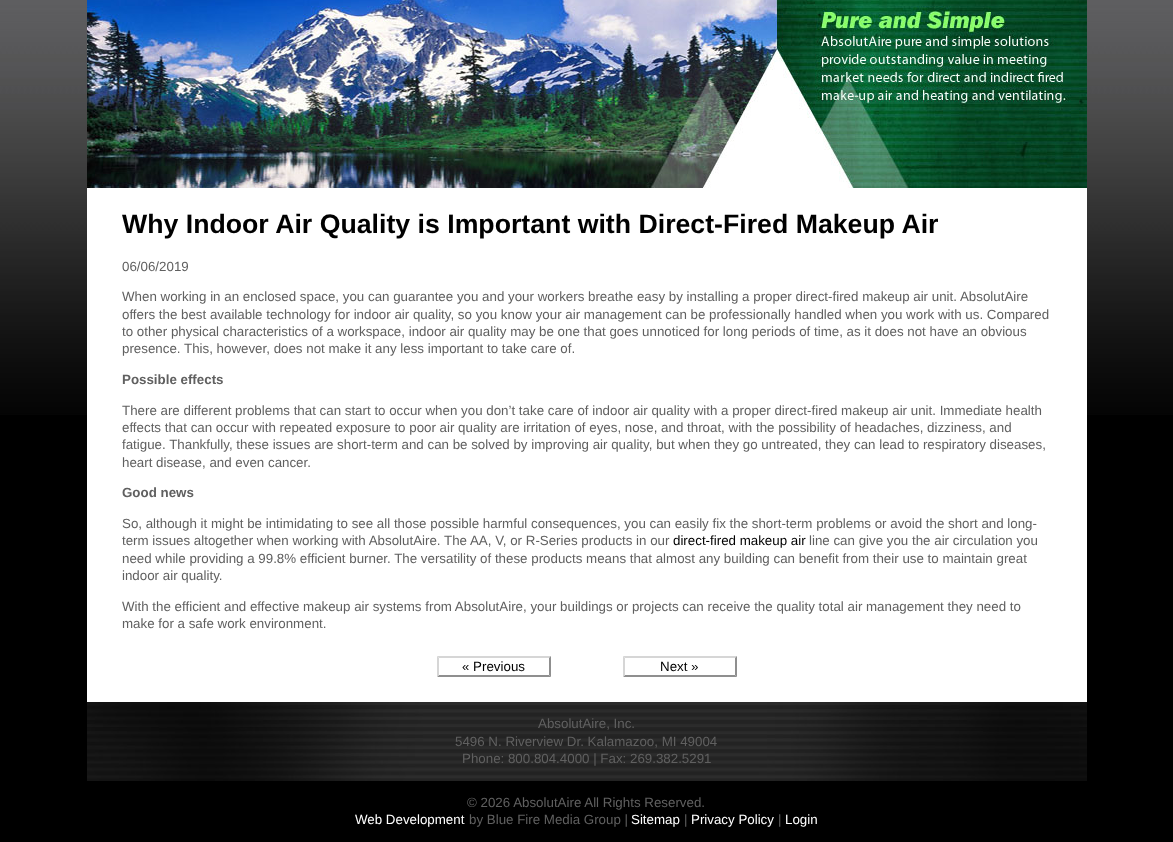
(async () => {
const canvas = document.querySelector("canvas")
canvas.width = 1173
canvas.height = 842
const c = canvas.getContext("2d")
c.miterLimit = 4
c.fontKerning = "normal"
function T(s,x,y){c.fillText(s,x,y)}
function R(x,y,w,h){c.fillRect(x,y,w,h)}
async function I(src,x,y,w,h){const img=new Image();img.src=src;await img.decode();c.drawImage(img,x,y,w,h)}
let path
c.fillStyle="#000"
R(0,0,1173,842)
await I("1.png",0,0,1173,415)
c.fillStyle="#fff"
R(87,188,1000,514)
await I("2.png",87,0,1000,188)
c.font="bold 26.7px Liberation Sans"
c.fillStyle="#000"
T("Why Indoor Air Quality is Important with Direct-Fired Makeup Air",122,233)
c.font="13.33px Liberation Sans"
c.fillStyle="#606060"
T("06/06/2019",122,271)
T("When working in an enclosed space, you can guarantee you and your workers breathe easy by installing a proper direct-fired makeup air unit. AbsolutAire",122,301)
T("offers the best available technology for indoor air quality, so you know your air management can be professionally handled when you work with us. Compared",122,319)
T("to other physical characteristics of a workspace, indoor air quality may be one that goes unnoticed for long periods of time, as it does not have an obvious",122,336)
T("presence. This, however, does not make it any less important to take care of.",122,353)
c.font="bold 13.33px Liberation Sans"
T("Possible effects",122,384)
c.font="13.33px Liberation Sans"
T("There are different problems that can start to occur when you don’t take care of indoor air quality with a proper direct-fired makeup air unit. Immediate health",122,415)
T("effects that can occur with repeated exposure to poor air quality are irritation of eyes, nose, and throat, with the possibility of headaches, dizziness, and",122,432)
T("fatigue. Thankfully, these issues are short-term and can be solved by improving air quality, but when they go untreated, they can lead to respiratory diseases,",122,449)
T("heart disease, and even cancer.",122,467)
c.font="bold 13.33px Liberation Sans"
T("Good news",122,497)
c.font="13.33px Liberation Sans"
T("So, although it might be intimidating to see all those possible harmful consequences, you can easily fix the short-term problems or avoid the short and long-",122,528)
T("term issues altogether when working with AbsolutAire. The AA, V, or R-Series products in our",122,545)
c.fillStyle="#000"
T("direct-fired makeup air",673,545)
c.fillStyle="#606060"
T("line can give you the air circulation you",809,545)
T("need while providing a 99.8% efficient burner. The versatility of these products means that almost any building can benefit from their use to maintain great",122,563)
T("indoor air quality.",122,580)
T("With the efficient and effective makeup air systems from AbsolutAire, your buildings or projects can receive the quality total air management they need to",122,611)
T("make for a safe work environment.",122,628)
c.fillStyle="#d6d6d6"
path = new Path2D("M437 656h114l-2 2h-110z")
c.fill(path)
c.fillStyle="#8f8f8f"
path = new Path2D("M551 656v21l-2-2v-17z")
c.fill(path)
path = new Path2D("M551 677h-114l2-2h110z")
c.fill(path)
c.fillStyle="#d6d6d6"
path = new Path2D("M437 677v-21l2 2v17z")
c.fill(path)
c.fillStyle="#000"
T("« Previous",462,671)
c.fillStyle="#d6d6d6"
path = new Path2D("M623 656h114l-2 2h-110z")
c.fill(path)
c.fillStyle="#8f8f8f"
path = new Path2D("M737 656v21l-2-2v-17z")
c.fill(path)
path = new Path2D("M737 677h-114l2-2h110z")
c.fill(path)
c.fillStyle="#d6d6d6"
path = new Path2D("M623 677v-21l2 2v17z")
c.fill(path)
c.fillStyle="#000"
T("Next »",660,671)
await I("3.png",87,702,1000,79)
c.fillStyle="#606060"
T("AbsolutAire, Inc.",538,728)
T("5496 N. Riverview Dr. Kalamazoo, MI 49004",455,746)
T("Phone: 800.804.4000 | Fax: 269.382.5291",462,763)
T("© 2026 AbsolutAire All Rights Reserved.",467,807)
c.fillStyle="#fff"
T("Web Development",355,824)
c.fillStyle="#606060"
T("by Blue Fire Media Group |",469,824)
c.fillStyle="#fff"
T("Sitemap",631,824)
c.fillStyle="#606060"
T("|",684,824)
c.fillStyle="#fff"
T("Privacy Policy",691,824)
c.fillStyle="#606060"
T("|",778,824)
c.fillStyle="#fff"
T("Login",785,824)
})()
